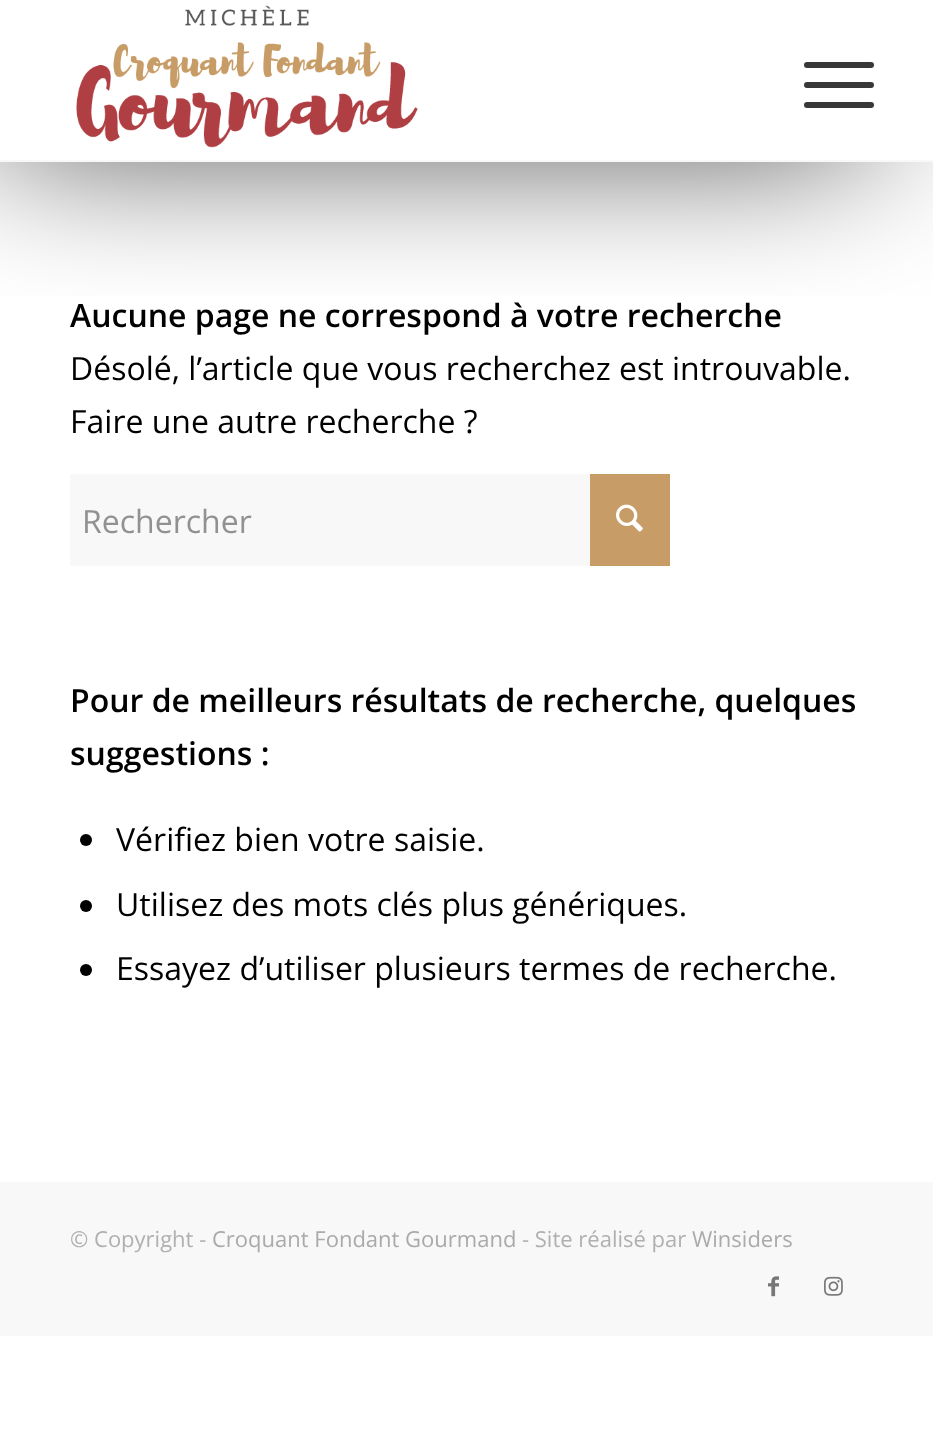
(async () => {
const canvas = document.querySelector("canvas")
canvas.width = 933
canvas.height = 1450
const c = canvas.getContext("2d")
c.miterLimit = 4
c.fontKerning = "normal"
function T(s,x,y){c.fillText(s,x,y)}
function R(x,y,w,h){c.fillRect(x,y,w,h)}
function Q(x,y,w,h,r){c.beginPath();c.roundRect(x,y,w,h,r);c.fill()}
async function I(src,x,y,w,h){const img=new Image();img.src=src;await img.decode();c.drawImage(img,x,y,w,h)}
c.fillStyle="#fff"
R(0,0,933,1450)
c.save()
c.beginPath()
c.rect(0,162,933,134)
c.clip()
c.fillStyle="#000"
c.filter="blur(80px)"
c.beginPath()
c.rect(-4,30,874,102)
c.fill()
c.filter="none"
c.restore()
c.fillStyle="#f8f8f8"
R(0,160,933,2)
await I("1.png",76,5,342,143)
c.fillStyle="#383838"
Q(804,82,70,6,3)
Q(804,62,70,6,3)
Q(804,102,70,6,3)
c.font="600 32px Open Sans"
c.fillStyle="#000"
T("Aucune page ne correspond à votre recherche",70,327)
c.font="32px Open Sans"
T("Désolé, l’article que vous recherchez est introuvable.",70,380)
T("Faire une autre recherche ?",70,433)
c.fillStyle="#f8f8f8"
R(70,474,520,92)
c.fillStyle="#919191"
T("Rechercher",82,533)
c.fillStyle="#c89c66"
R(590,474,80,92)
await I("2.png",616,504,27,28)
c.font="600 32px Open Sans"
c.fillStyle="#000"
T("Pour de meilleurs résultats de recherche, quelques",70,712)
T("suggestions :",70,765)
c.beginPath()
c.arc(86,840,6,0,7)
c.fill()
c.font="32px Open Sans"
T("Vérifiez bien votre saisie.",116,851)
c.beginPath()
c.arc(86,906,6,0,7)
c.fill()
T("Utilisez des mots clés plus génériques.",116,916)
c.beginPath()
c.arc(86,970,6,0,7)
c.fill()
T("Essayez d’utiliser plusieurs termes de recherche.",116,980)
c.fillStyle="#f8f8f8"
R(0,1182,933,154)
c.font="22px Open Sans"
c.fillStyle="#b0b0b0"
T("© Copyright -",70,1247)
c.fillStyle="#aaa"
T("Croquant Fondant Gourmand",212,1247)
c.fillStyle="#b0b0b0"
T("- Site réalisé par",522,1247)
c.fillStyle="#aaa"
T("Winsiders",692,1247)
await I("3.png",768,1276,11,21)
await I("4.png",824,1276,19,20)
})()
